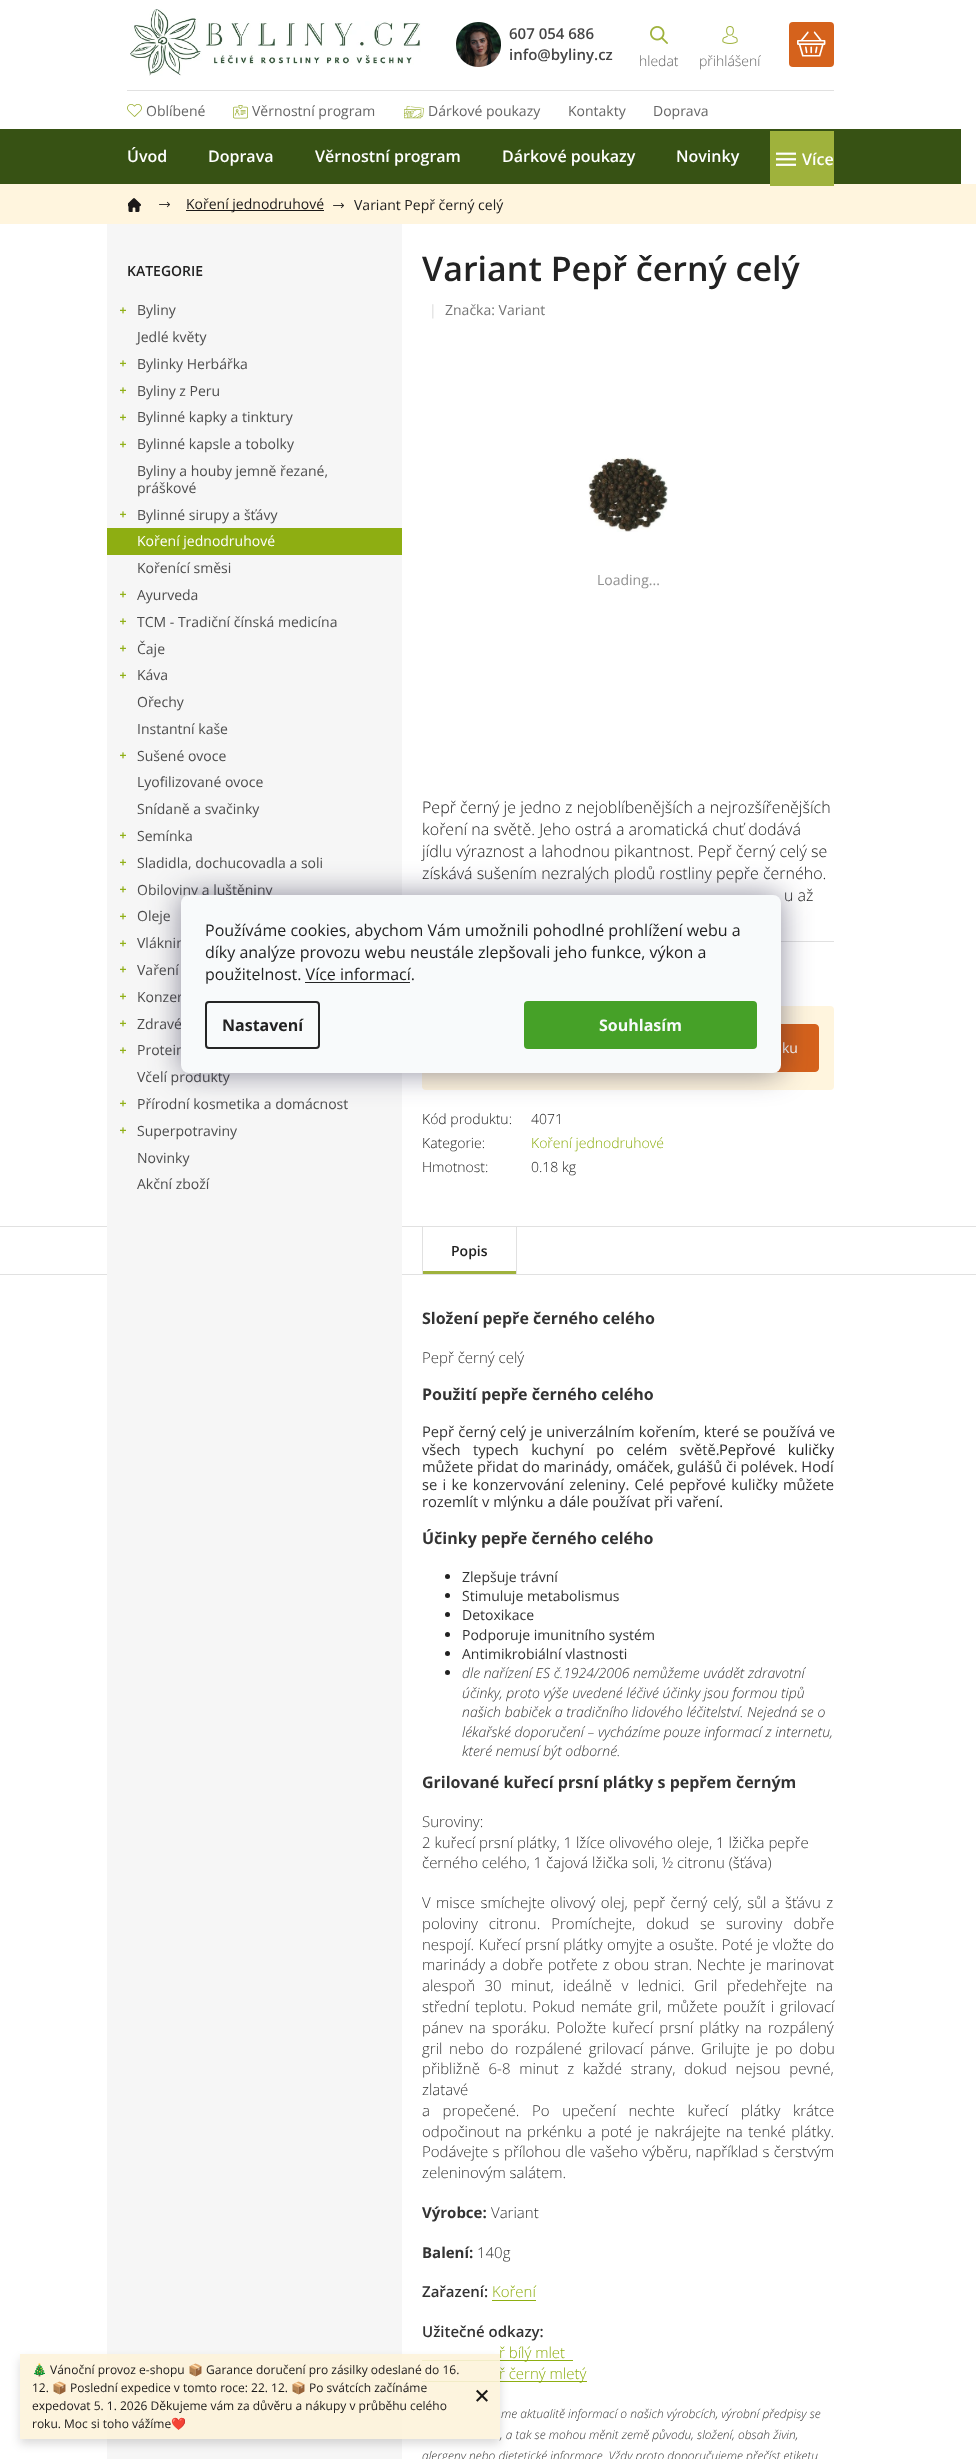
(async () => {
const canvas = document.querySelector("canvas")
canvas.width = 976
canvas.height = 2459
const c = canvas.getContext("2d")
c.miterLimit = 4
c.fontKerning = "normal"
function T(s,x,y){c.fillText(s,x,y)}
function R(x,y,w,h){c.fillRect(x,y,w,h)}
function Q(x,y,w,h,r){c.beginPath();c.roundRect(x,y,w,h,r);c.fill()}
async function I(src,x,y,w,h){const img=new Image();img.src=src;await img.decode();c.drawImage(img,x,y,w,h)}
let path
c.fillStyle="#fff"
R(0,0,976,2459)
c.fillStyle="#375214"
R(0,129,961,55)
await I("1.png",130,9,291,67)
await I("2.png",456,22,45,45)
c.font="600 15px Open Sans"
c.fillStyle="#454545"
T("607 054 686",509,39)
T("info@byliny.cz",509,60)
await I("3.png",650,26,18,18)
c.font="300 14px Open Sans"
c.fillStyle="#666"
T("hledat",639,66)
await I("4.png",722,26,16,18)
T("přihlášení",699,66)
c.fillStyle="#d5621c"
Q(789,22,45,45,4)
await I("5.png",797,31,29,26)
c.fillStyle="#e1e1e1"
R(127,90,707,1)
await I("6.png",127,104,15,13)
c.font="14px Open Sans"
c.fillStyle="#666"
T("Oblíbené",146,116)
await I("7.png",233,105,15,14)
T("Věrnostní program",252,116)
await I("8.png",404,106,20,13)
T("Dárkové poukazy",428,116)
T("Kontakty",568,116)
T("Doprava",653,116)
c.font="600 16px Open Sans"
c.fillStyle="#fff"
T("Úvod",127,162)
T("Doprava",208,162)
T("Věrnostní program",315,162)
T("Dárkové poukazy",502,162)
T("Novinky",676,162)
c.fillStyle="#fff5de"
R(0,184,976,40)
c.fillStyle="#9fb23c"
R(770,131,64,55)
await I("9.png",776,152,20,14)
c.fillStyle="#fff"
T("Více",802,165)
await I("10.png",128,198,13,14)
await I("11.png",159,201,11,7)
c.fillStyle="#1b1919"
R(186,210,138,1)
c.font="14px Open Sans"
T("Koření jednodruhové",186,209)
await I("11.png",333,202,11,7)
c.fillStyle="#222"
T("Variant Pepř černý celý",354,210)
c.fillStyle="#e1e1e1"
R(0,1226,976,1)
R(0,1274,976,1)
c.fillStyle="#f6f6f6"
R(107,224,295,2235)
c.font="600 14px Open Sans"
c.fillStyle="#222"
T("KATEGORIE",127,276)
await I("12.png",120,307,6,7)
c.font="14px Open Sans"
c.fillStyle="#4d4d4d"
T("Byliny",137,315)
T("Jedlé květy",137,342)
await I("12.png",120,360,6,7)
T("Bylinky Herbářka",137,369)
await I("12.png",120,387,6,7)
T("Byliny z Peru",137,396)
await I("12.png",120,414,6,7)
T("Bylinné kapky a tinktury",137,422)
await I("12.png",120,441,6,7)
T("Bylinné kapsle a tobolky",137,449)
T("Byliny a houby jemně řezané,",137,476)
T("práškové",137,493)
await I("12.png",120,511,6,7)
T("Bylinné sirupy a šťávy",137,520)
c.fillStyle="#8eae12"
R(107,528,295,27)
c.fillStyle="#fff"
T("Koření jednodruhové",137,546)
c.fillStyle="#4d4d4d"
T("Kořenící směsi",137,573)
await I("12.png",120,591,6,7)
T("Ayurveda",137,600)
await I("12.png",120,618,6,7)
T("TCM - Tradiční čínská medicína",137,627)
await I("12.png",120,645,6,7)
T("Čaje",137,654)
await I("12.png",120,672,6,7)
T("Káva",137,680)
T("Ořechy",137,707)
T("Instantní kaše",137,734)
await I("12.png",120,752,6,7)
T("Sušené ovoce",137,761)
T("Lyofilizované ovoce",137,787)
T("Snídaně a svačinky",137,814)
await I("12.png",120,832,6,7)
T("Semínka",137,841)
await I("12.png",120,859,6,7)
T("Sladidla, dochucovadla a soli",137,868)
await I("12.png",120,886,6,7)
T("Obiloviny a luštěniny",137,895)
await I("12.png",120,913,6,7)
T("Oleje",137,921)
await I("12.png",120,940,6,7)
T("Vláknin",137,948)
await I("12.png",120,966,6,7)
T("Vaření",137,975)
await I("12.png",120,993,6,7)
T("Konzer",137,1002)
await I("12.png",120,1020,6,7)
T("Zdravé",137,1029)
await I("12.png",120,1047,6,7)
T("Protein",137,1055)
T("Včelí produkty",137,1082)
await I("12.png",120,1100,6,7)
T("Přírodní kosmetika a domácnost",137,1109)
await I("12.png",120,1127,6,7)
T("Superpotraviny",137,1136)
T("Novinky",137,1163)
T("Akční zboží",137,1189)
c.font="600 34px Open Sans"
c.fillStyle="#222"
T("Variant Pepř černý celý",422,281)
c.font="14px Open Sans"
c.fillStyle="#dadada"
T("|",429,315)
c.fillStyle="#767676"
T("Značka: Variant",445,315)
await I("13.png",588,457,80,75)
c.fillStyle="#919191"
T("Loading...",597,585)
c.font="300 16px Open Sans"
c.fillStyle="#222"
T("Pepř černý je jedno z nejoblíbenějších a nejrozšířenějších",422,813)
T("koření na světě. Jeho ostrá a aromatická chuť dodává",422,835)
T("jídlu výraznost a lahodnou pikantnost. Pepř černý celý se",422,857)
T("získává sušením nezralých plodů rostliny pepře černého.",422,879)
T("u až",784,901)
c.fillStyle="#e1e1e1"
R(781,941,53,1)
c.fillStyle="#fff5de"
Q(422,1006,412,84,4)
c.fillStyle="#d5621c"
c.beginPath()
c.roundRect(636.5,1024.5,182,47,3.5)
c.fill()
c.strokeStyle="#d5621c"
c.stroke()
c.font="14px Open Sans"
c.fillStyle="#fff"
T("ku",782,1053)
c.font="300 14px Open Sans"
c.fillStyle="#222"
T("Kód produktu:",422,1124)
T("4071",531,1124)
T("Kategorie:",422,1148)
c.fillStyle="#8eae12"
T("Koření jednodruhové",531,1148)
c.fillStyle="#222"
T("Hmotnost:",422,1172)
T("0.18 kg",531,1172)
c.fillStyle="#e1e1e1"
R(516,1227,1,47)
R(422,1227,1,47)
c.font="600 14px Open Sans"
c.fillStyle="#222"
T("Popis",451,1256)
c.fillStyle="#9fb23c"
R(423,1271,93,3)
c.font="bold 16px Open Sans"
c.fillStyle="#333"
T("Složení pepře černého celého",422,1324)
c.font="300 15px Open Sans"
T("Pepř černý celý",422,1363)
c.font="bold 16px Open Sans"
T("Použití pepře černého celého",422,1400)
c.wordSpacing="0.25px"
c.font="14.7px Open Sans"
T("Pepř černý celý je univerzálním kořením, které se používá ve",422,1437)
c.wordSpacing="8.5px"
T("všech typech kuchyní po celém světě.",422,1455)
c.fillStyle="#222"
T("Pepřové kuličky",719,1455)
c.wordSpacing="0px"
c.fillStyle="#333"
T("můžete přidat do marinády, omáček, gulášů či polévek. Hodí",422,1472)
c.wordSpacing="1.5px"
T("se i ke konzervování zeleniny. Celé pepřové kuličky můžete",422,1490)
c.wordSpacing="0px"
T("rozemlít v mlýnku a dále používat při vaření.",422,1507)
c.font="bold 16px Open Sans"
T("Účinky pepře černého celého",422,1544)
c.fillStyle="#222"
c.beginPath()
c.arc(447.5,1576.5,2.5,0,7)
c.fill()
c.font="14px Open Sans"
c.fillStyle="#333"
T("Zlepšuje trávní",462,1582)
c.fillStyle="#222"
c.beginPath()
c.arc(447.5,1595.5,2.5,0,7)
c.fill()
c.fillStyle="#333"
T("Stimuluje metabolismus",462,1601)
c.fillStyle="#222"
c.beginPath()
c.arc(447.5,1614.5,2.5,0,7)
c.fill()
c.fillStyle="#333"
T("Detoxikace",462,1620)
c.fillStyle="#222"
c.beginPath()
c.arc(447.5,1634.5,2.5,0,7)
c.fill()
c.fillStyle="#333"
T("Podporuje imunitního systém",462,1640)
c.fillStyle="#222"
c.beginPath()
c.arc(447.5,1653.5,2.5,0,7)
c.fill()
c.fillStyle="#333"
T("Antimikrobiální vlastnosti",462,1659)
c.fillStyle="#222"
c.beginPath()
c.arc(447.5,1672.5,2.5,0,7)
c.fill()
c.font="italic 300 14px Open Sans"
c.fillStyle="#333"
T("dle nařízení ES č.1924/2006 nemůžeme uvádět zdravotní",462,1678)
T("účinky, proto výše uvedené léčivé účinky jsou formou tipů",462,1698)
T("našich babiček a tradičního lidového léčitelství. Nejedná se o",462,1717)
T("lékařské doporučení – vycházíme pouze informací z internetu,",462,1737)
T("které nemusí být odborné.",462,1756)
c.font="bold 16px Open Sans"
T("Grilované kuřecí prsní plátky s pepřem černým",422,1788)
c.font="300 15px Open Sans"
T("Suroviny:",422,1827)
T("2 kuřecí prsní plátky, 1 lžíce olivového oleje, 1 lžička pepře",422,1848)
T("černého celého, 1 čajová lžička soli, ½ citronu (šťáva)",422,1868)
c.wordSpacing="1.5px"
T("V misce smíchejte olivový olej, pepř černý celý, sůl a šťávu z",422,1908)
c.wordSpacing="7px"
T("poloviny citronu. Promíchejte, dokud se suroviny dobře",422,1929)
c.wordSpacing="0.4px"
T("nespojí. Kuřecí prsní plátky omyjte a osušte. Poté je vložte do",422,1950)
c.wordSpacing="0.75px"
T("marinády a dobře potřete z obou stran. Nechte je marinovat",422,1970)
c.wordSpacing="5.5px"
T("alespoň 30 minut, ideálně v lednici. Gril předehřejte na",422,1991)
c.wordSpacing="1.75px"
T("střední teplotu. Pokud nemáte gril, můžete použít i grilovací",422,2012)
c.wordSpacing="2.25px"
T("pánev na sporáku. Položte kuřecí prsní plátky na rozpálený",422,2033)
c.wordSpacing="2.75px"
T("gril nebo do rozpálené grilovací pánve. Grilujte je po dobu",422,2054)
c.wordSpacing="4.75px"
T("přibližně 6-8 minut z každé strany, dokud nejsou pevné,",422,2074)
c.wordSpacing="0px"
T("zlatavé",422,2095)
c.wordSpacing="8.75px"
T("a propečené. Po upečení nechte kuřecí plátky krátce",422,2116)
c.wordSpacing="1.5px"
T("odpočinout na prkénku a poté je nakrájejte na tenké plátky.",422,2137)
c.wordSpacing="0.5px"
T("Podávejte s přílohou dle vašeho výběru, například s čerstvým",422,2157)
c.wordSpacing="0px"
T("zeleninovým salátem.",422,2178)
c.font="bold 15px Open Sans"
T("Výrobce:",422,2218)
c.font="300 15px Open Sans"
T("Variant",491,2218)
c.font="bold 15px Open Sans"
T("Balení:",422,2258)
c.font="300 15px Open Sans"
T("140g",477,2258)
c.font="600 15px Open Sans"
T("Zařazení:",422,2297)
c.font="300 15px Open Sans"
c.fillStyle="#8eae12"
T("Koření",492,2297)
R(492,2300,44,1)
c.font="600 15px Open Sans"
c.fillStyle="#333"
T("Užitečné odkazy:",422,2337)
c.fillStyle="#8eae12"
R(422,2360,151,1)
c.font="300 15px Open Sans"
T("ř bílý mlet",499,2358)
R(422,2381,165,1)
T("ř černý mletý",499,2379)
c.font="italic 300 12px Open Sans"
c.fillStyle="#333"
T("me aktualitě informací o našich výrobcích, výrobní předpisy se",501,2418)
T(", a tak se mohou měnit země původu, složení, obsah živin,",500,2439)
T("alergeny nebo dietetické informace. Vždy proto doporučujeme přečíst etiketu",422,2460)
c.save()
path = new Path2D("M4 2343h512v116h-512zm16 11h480v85h-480z")
c.clip(path,"evenodd")
c.fillStyle="#00000024"
c.filter="blur(5px)"
c.beginPath()
c.rect(20,2359,480,85)
c.fill()
c.filter="none"
c.restore()
c.fillStyle="#fdf3dae6"
R(20,2354,480,85)
c.font="12px Noto Color Emoji"
c.fillStyle="#1b1919"
T("🎄",32,2374)
c.font="12px Open Sans"
T("Vánoční provoz e-shopu",50,2374)
c.font="12px Noto Color Emoji"
T("📦",188,2374)
c.font="12px Open Sans"
T("Garance doručení pro zásilky odeslané do 16.",206,2374)
T("12.",32,2392)
c.font="12px Noto Color Emoji"
T("📦",52,2392)
c.font="12px Open Sans"
T("Poslední expedice v tomto roce: 22. 12.",70,2392)
c.font="12px Noto Color Emoji"
T("📦",291,2392)
c.font="12px Open Sans"
T("Po svátcích začínáme",309,2392)
T("expedovat 5. 1. 2026 Děkujeme vám za důvěru a nákupy v průběhu celého",32,2410)
T("roku. Moc si toho vážíme",32,2428)
c.font="12px Noto Color Emoji"
T("❤️",171,2428)
await I("14.png",476,2389,12,13)
c.fillStyle="#1b193980"
c.filter="blur(15px)"
c.beginPath()
c.roundRect(181,895,600,178,8)
c.fill()
c.filter="none"
c.fillStyle="#f8fafb"
Q(181,895,600,178,8)
c.font="16px Open Sans"
c.fillStyle="#222"
T("Používáme cookies, abychom Vám umožnili pohodlné prohlížení webu a",205,936)
T("díky analýze provozu webu neustále zlepšovali jeho funkce, výkon a",205,958)
T("použitelnost. Více informací.",205,980)
c.fillStyle="#252525"
R(305,982,105,1)
c.beginPath()
c.roundRect(206,1002,113,46,3)
c.strokeStyle="#252525"
c.lineWidth=2
c.stroke()
c.font="bold 16px Open Sans"
c.fillStyle="#222"
T("Nastavení",222,1031)
c.fillStyle="#46a128"
Q(524,1001,233,48,4)
c.fillStyle="#f8fafb"
T("Souhlasím",599,1031)
})()
